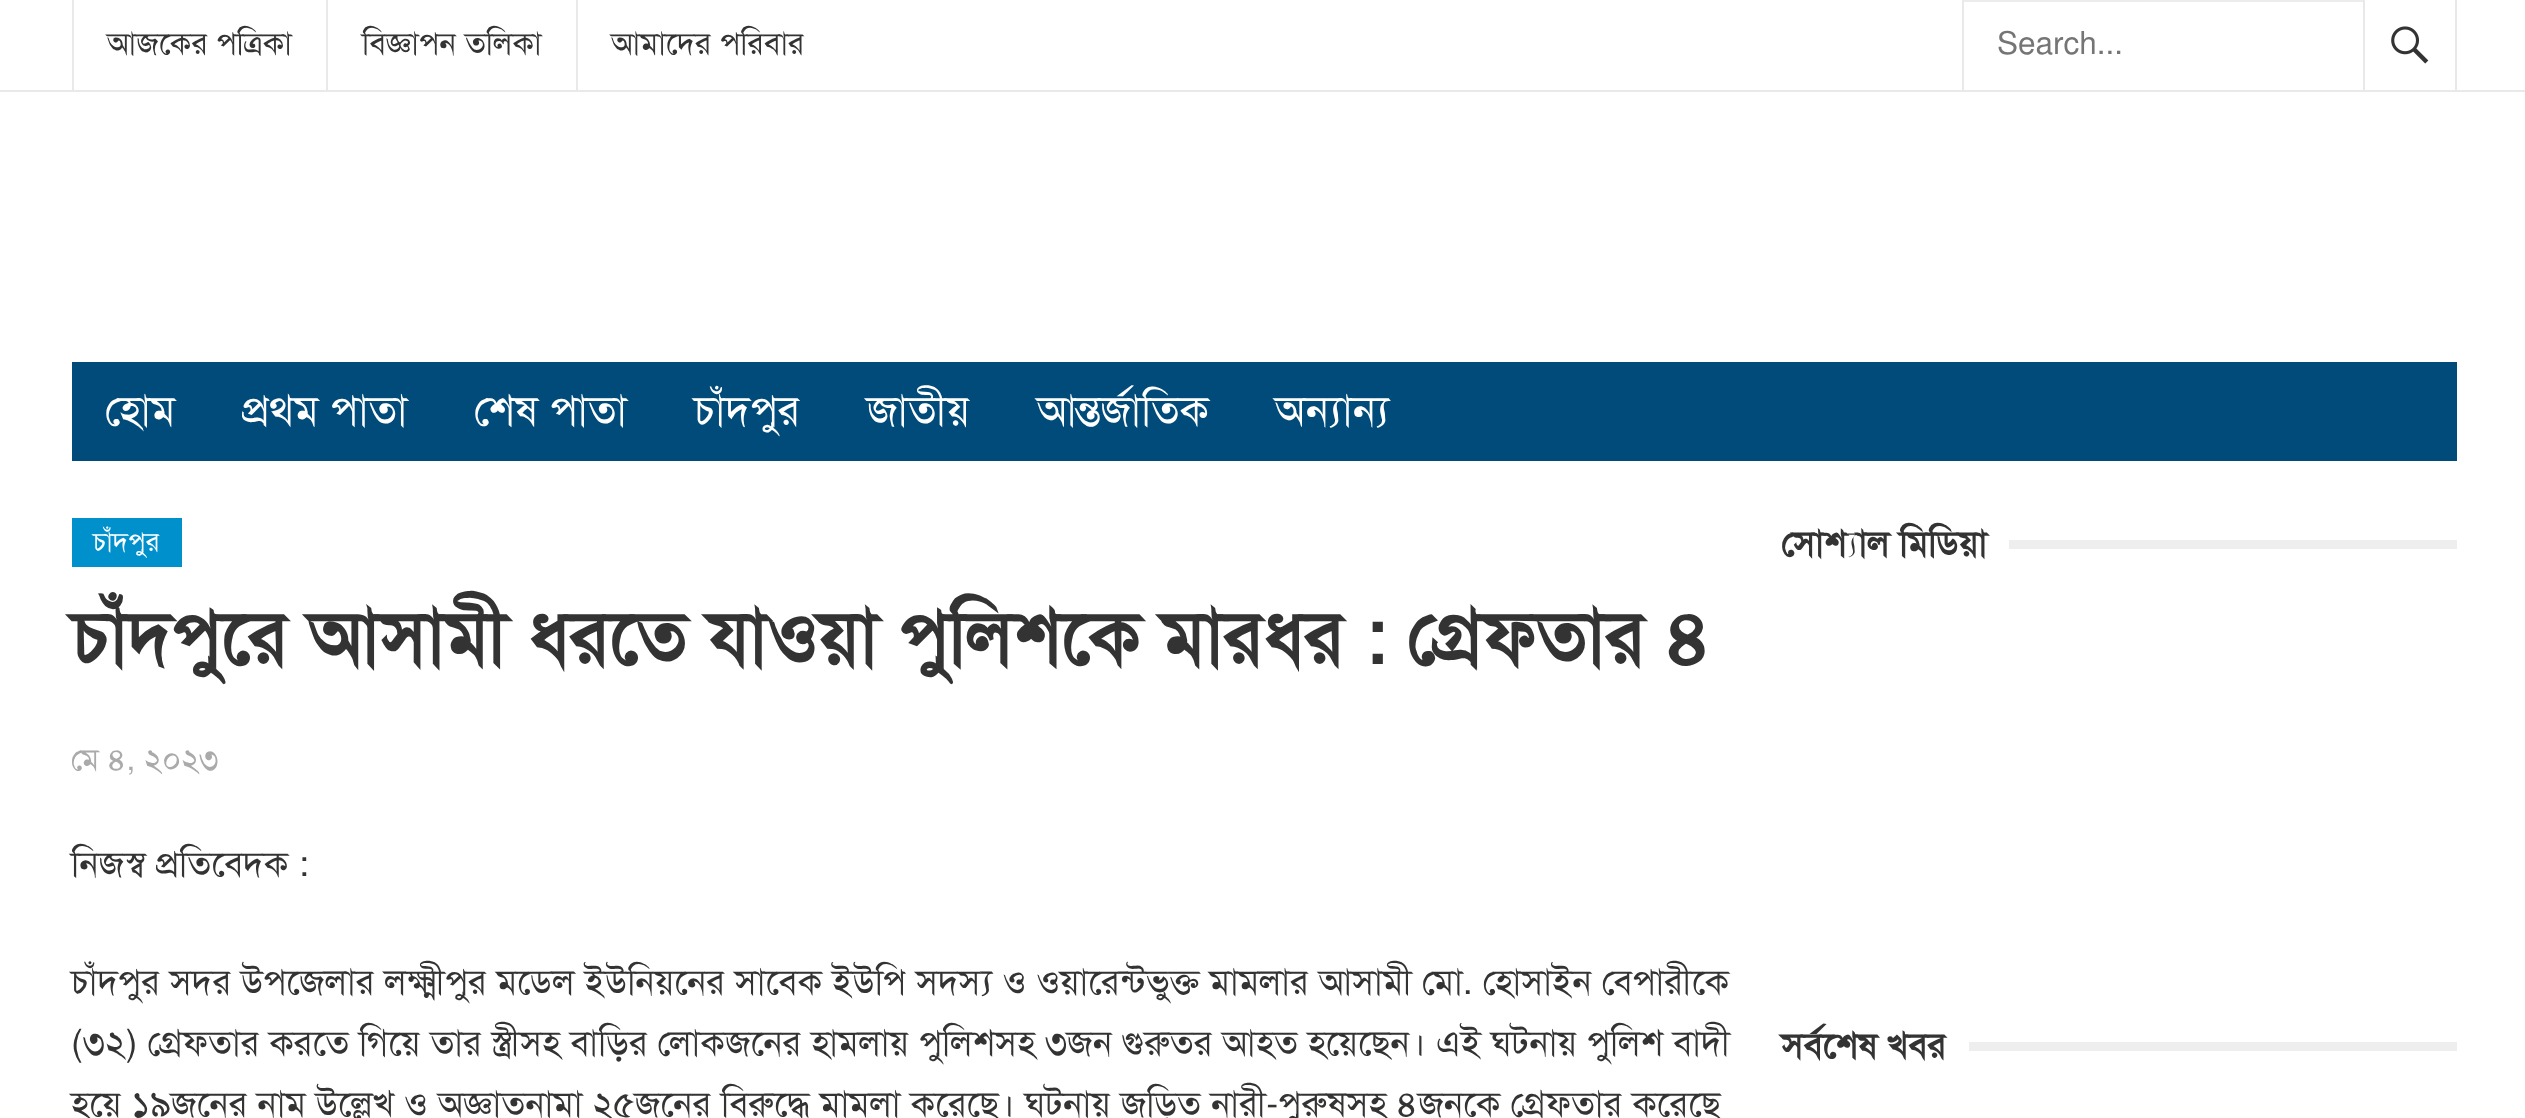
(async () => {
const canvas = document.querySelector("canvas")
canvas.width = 2525
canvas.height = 1118
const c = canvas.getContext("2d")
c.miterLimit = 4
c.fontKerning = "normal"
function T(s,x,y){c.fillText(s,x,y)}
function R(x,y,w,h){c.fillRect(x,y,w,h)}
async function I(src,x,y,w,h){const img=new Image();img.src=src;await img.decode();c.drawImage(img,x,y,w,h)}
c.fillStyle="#fff"
R(0,0,2525,1118)
c.fillStyle="#e9e9e9"
R(0,90,2525,2)
R(72,0,2,90)
c.font="31.5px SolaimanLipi"
c.fillStyle="#333"
T("আজকের পত্রিকা",107,54)
c.fillStyle="#e9e9e9"
R(326,0,2,90)
c.fillStyle="#333"
T("বিজ্ঞাপন তলিকা",362,54)
c.fillStyle="#e9e9e9"
R(576,0,2,90)
c.fillStyle="#333"
T("আমাদের পরিবার",611,54)
c.fillStyle="#e9e9e9"
R(2455,0,2,90)
R(1962,0,2,90)
c.fillStyle="#ececec"
R(1964,0,403,2)
c.fillStyle="#757575"
T("Search...",1997,54)
c.fillStyle="#fff"
R(2365,0,2,2)
c.fillStyle="#e9e9e9"
R(2363,0,2,90)
await I("1.png",2391,26,38,38)
c.fillStyle="#004b79"
R(72,362,2385,99)
c.font="43px SolaimanLipi"
c.fillStyle="#fff"
T("হোম",105,425)
T("প্রথম পাতা",242,425)
T("শেষ পাতা",474,425)
T("চাঁদপুর",694,425)
T("জাতীয়",867,425)
T("আন্তর্জাতিক",1037,425)
T("অন্যান্য",1275,425)
c.fillStyle="#0091cd"
R(72,518,110,49)
c.font="27px SolaimanLipi"
c.fillStyle="#fff"
T("চাঁদপুর",93,551)
c.font="bold 76.5px SolaimanLipi"
c.fillStyle="#333"
T("চাঁদপুরে আসামী ধরতে যাওয়া পুলিশকে মারধর : গ্রেফতার ৪",71,664)
c.font="31.5px SolaimanLipi"
c.fillStyle="#aaa"
T("মে ৪, ২০২৩",71,770)
c.font="36px SolaimanLipi"
c.fillStyle="#333"
T("নিজস্ব প্রতিবেদক :",71,876)
T("চাঁদপুর সদর উপজেলার লক্ষ্মীপুর মডেল ইউনিয়নের সাবেক ইউপি সদস্য ও ওয়ারেন্টভুক্ত মামলার আসামী মো. হোসাইন বেপারীকে",71,994)
T("(৩২) গ্রেফতার করতে গিয়ে তার স্ত্রীসহ বাড়ির লোকজনের হামলায় পুলিশসহ ৩জন গুরুতর আহত হয়েছেন। এই ঘটনায় পুলিশ বাদী",71,1055)
T("হয়ে ১৯জনের নাম উল্লেখ ও অজ্ঞাতনামা ২৫জনের বিরুদ্ধে মামলা করেছে। ঘটনায় জড়িত নারী-পুরুষসহ ৪জনকে গ্রেফতার করেছে",71,1116)
c.font="bold 36px SolaimanLipi"
T("সোশ্যাল মিডিয়া",1781,556)
c.fillStyle="#eee"
R(2009,540,448,9)
c.fillStyle="#333"
T("সর্বশেষ খবর",1781,1058)
c.fillStyle="#eee"
R(1969,1042,488,9)
})()
